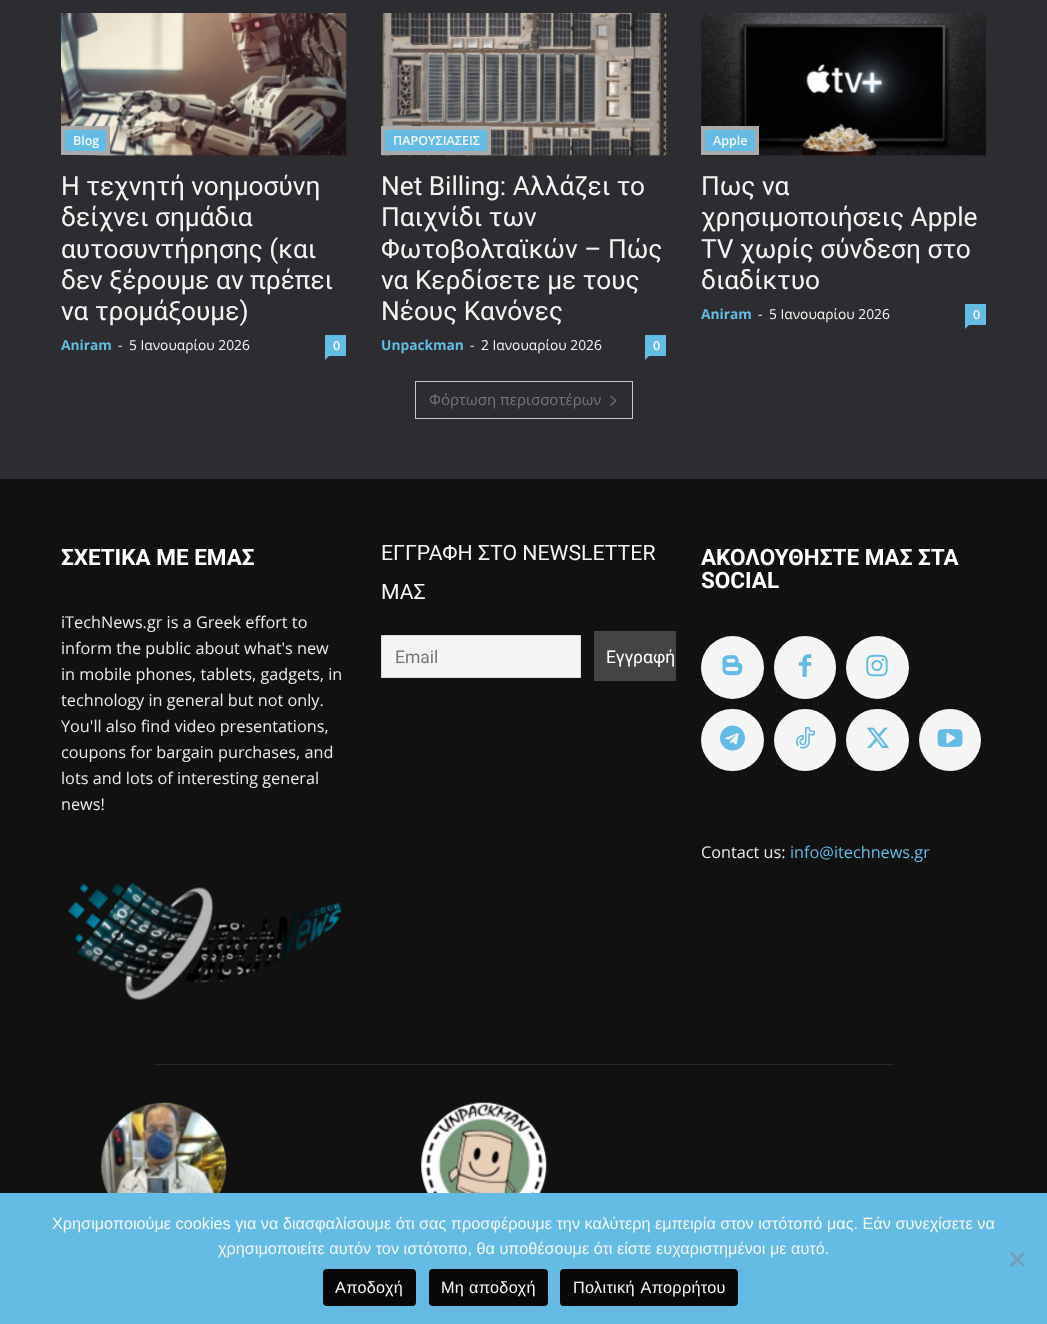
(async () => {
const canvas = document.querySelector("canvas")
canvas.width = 1047
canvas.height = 1324
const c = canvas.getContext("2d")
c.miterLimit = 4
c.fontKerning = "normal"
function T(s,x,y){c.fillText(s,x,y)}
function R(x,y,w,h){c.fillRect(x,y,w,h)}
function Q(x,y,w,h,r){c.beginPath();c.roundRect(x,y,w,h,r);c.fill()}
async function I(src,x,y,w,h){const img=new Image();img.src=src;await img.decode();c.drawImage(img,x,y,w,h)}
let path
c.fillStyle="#2d2d31"
R(0,0,1047,1324)
await I("1.png",61,13,286,143)
c.fillStyle="#64bbe3"
c.beginPath()
c.rect(63,128,45,25)
c.fill()
c.strokeStyle="#aaa"
c.lineWidth=4
c.stroke()
c.font="600 12.5px Open Sans"
c.fillStyle="#f5f5f5"
T("Blog",73,145)
c.font="26.25px Roboto"
T("Η τεχνητή νοημοσύνη",61,195)
T("δείχνει σημάδια",61,226)
T("αυτοσυντήρησης (και",61,258)
T("δεν ξέρουμε αν πρέπει",61,289)
T("να τρομάξουμε)",61,320)
c.font="bold 13.75px Open Sans"
c.fillStyle="#64bbe3"
T("Aniram",61,350)
c.font="13.75px Open Sans"
c.fillStyle="#f5f5f5"
T("-",118,350)
T("5 Ιανουαρίου 2026",129,350)
c.fillStyle="#64bbe3"
R(325,335,21,21)
c.font="600 12.5px Open Sans"
c.fillStyle="#f5f5f5"
T("0",333,350)
c.fillStyle="#64bbe3"
path = new Path2D("M325 356h4l-4 4z")
c.fill(path)
await I("2.png",381,13,286,143)
c.beginPath()
c.rect(383,128,106,25)
c.fill()
c.stroke()
c.fillStyle="#f5f5f5"
T("ΠΑΡΟΥΣΙΑΣΕΙΣ",393,145)
c.font="26.25px Roboto"
T("Net Billing: Αλλάζει το",381,195)
T("Παιχνίδι των",381,226)
T("Φωτοβολταϊκών – Πώς",381,258)
T("να Κερδίσετε με τους",381,289)
T("Νέους Κανόνες",381,320)
c.font="bold 13.75px Open Sans"
c.fillStyle="#64bbe3"
T("Unpackman",381,350)
c.font="13.75px Open Sans"
c.fillStyle="#f5f5f5"
T("-",470,350)
T("2 Ιανουαρίου 2026",481,350)
c.fillStyle="#64bbe3"
R(645,335,21,21)
c.font="600 12.5px Open Sans"
c.fillStyle="#f5f5f5"
T("0",653,350)
c.fillStyle="#64bbe3"
path = new Path2D("M645 356h4l-4 4z")
c.fill(path)
await I("3.png",701,13,285,143)
c.beginPath()
c.rect(703,128,54,25)
c.fill()
c.stroke()
c.fillStyle="#f5f5f5"
T("Apple",713,145)
c.font="26.25px Roboto"
T("Πως να",701,195)
T("χρησιμοποιήσεις Apple",701,226)
T("TV χωρίς σύνδεση στο",701,258)
T("διαδίκτυο",701,289)
c.font="bold 13.75px Open Sans"
c.fillStyle="#64bbe3"
T("Aniram",701,319)
c.font="13.75px Open Sans"
c.fillStyle="#f5f5f5"
T("-",758,319)
T("5 Ιανουαρίου 2026",769,319)
c.fillStyle="#64bbe3"
R(965,304,21,21)
c.font="600 12.5px Open Sans"
c.fillStyle="#f5f5f5"
T("0",973,319)
c.fillStyle="#64bbe3"
path = new Path2D("M965 325h4l-4 4z")
c.fill(path)
c.strokeStyle="#c9c9c9"
c.lineWidth=1
c.strokeRect(415.5,381.5,217,37)
c.font="15px Open Sans"
c.fillStyle="#767676"
T("Φόρτωση περισσοτέρων",429,405)
await I("4.png",610,395,7,11)
c.fillStyle="#111"
R(0,479,1047,714)
c.font="bold 22.5px Roboto"
c.fillStyle="#fff"
T("ΣΧΕΤΙΚΑ ΜΕ ΕΜΑΣ",61,565)
c.font="16.25px Open Sans"
c.fillStyle="#eaeaea"
T("iTechNews.gr is a Greek effort to",61,628)
T("inform the public about what's new",61,654)
T("in mobile phones, tablets, gadgets, in",61,680)
T("technology in general but not only.",61,706)
T("You'll also find video presentations,",61,732)
T("coupons for bargain purchases, and",61,758)
T("lots and lots of interesting general",61,784)
T("news!",61,810)
await I("5.png",67,882,275,119)
c.font="21.25px Roboto"
c.fillStyle="#f5f5f5"
T("ΕΓΓΡΑΦΗ ΣΤΟ NEWSLETTER",381,560)
T("ΜΑΣ",381,599)
c.fillStyle="#f4f4f4"
c.beginPath()
c.rect(381.5,635.5,199,42)
c.fill()
c.strokeStyle="#ddd"
c.stroke()
c.font="17.5px Roboto"
c.fillStyle="#767676"
T("Email",395,663)
c.fillStyle="#444"
R(594,631,82,50)
c.fillStyle="#fff"
T("Εγγραφή",606,663)
c.font="bold 22.5px Roboto"
T("ΑΚΟΛΟΥΘΗΣΤΕ ΜΑΣ ΣΤΑ",701,565)
T("SOCIAL",701,588)
c.fillStyle="#f5f5f5"
c.beginPath()
c.arc(732.5,667.5,31.5,0,7)
c.fill()
await I("6.png",722,655,21,21)
Q(774,636,62,63,31)
await I("7.png",798,654,14,23)
c.beginPath()
c.arc(877.5,667.5,31.5,0,7)
c.fill()
await I("8.png",866,654,22,23)
Q(701,709,63,62,31)
await I("9.png",720,725,25,26)
c.beginPath()
c.arc(805,740,31,0,7)
c.fill()
await I("10.png",796,727,19,22)
Q(846,709,63,62,31)
await I("11.png",866,727,23,21)
c.beginPath()
c.arc(950,740,31,0,7)
c.fill()
await I("12.png",937,729,26,18)
c.font="16.25px Open Sans"
c.fillStyle="#eaeaea"
T("Contact us:",701,858)
c.fillStyle="#64bbe3"
T("info@itechnews.gr",790,858)
c.fillStyle="#292929"
R(154,1064,740,1)
await I("13.png",101,1102,126,91)
await I("14.png",421,1102,126,91)
c.fillStyle="#64bbe3"
R(0,1193,1047,131)
c.font="16.25px Liberation Sans"
c.fillStyle="#f5f5f5"
T("Χρησιμοποιούμε cookies για να διασφαλίσουμε ότι σας προσφέρουμε την καλύτερη εμπειρία στον ιστότοπό μας. Εάν συνεχίσετε να",52,1229)
T("χρησιμοποιείτε αυτόν τον ιστότοπο, θα υποθέσουμε ότι είστε ευχαριστημένοι με αυτό.",218,1254)
c.fillStyle="#729eb2"
path = new Path2D("M1023 1252l2 1.5l-13 13.5l-2-2z")
c.fill(path)
path = new Path2D("M1010 1253.5l2-1.5l13 13l-2 2z")
c.fill(path)
c.fillStyle="#080808"
Q(323,1269,93,37,4)
c.letterSpacing="0.3px"
c.fillStyle="#f5f5f5"
T("Αποδοχή",335,1293)
c.fillStyle="#080808"
Q(429,1269,119,37,4)
c.fillStyle="#f5f5f5"
T("Μη αποδοχή",441,1293)
c.fillStyle="#080808"
Q(560,1269,178,37,4)
c.wordSpacing="1px"
c.fillStyle="#f5f5f5"
T("Πολιτική Aπορρήτου",573,1293)
})()
